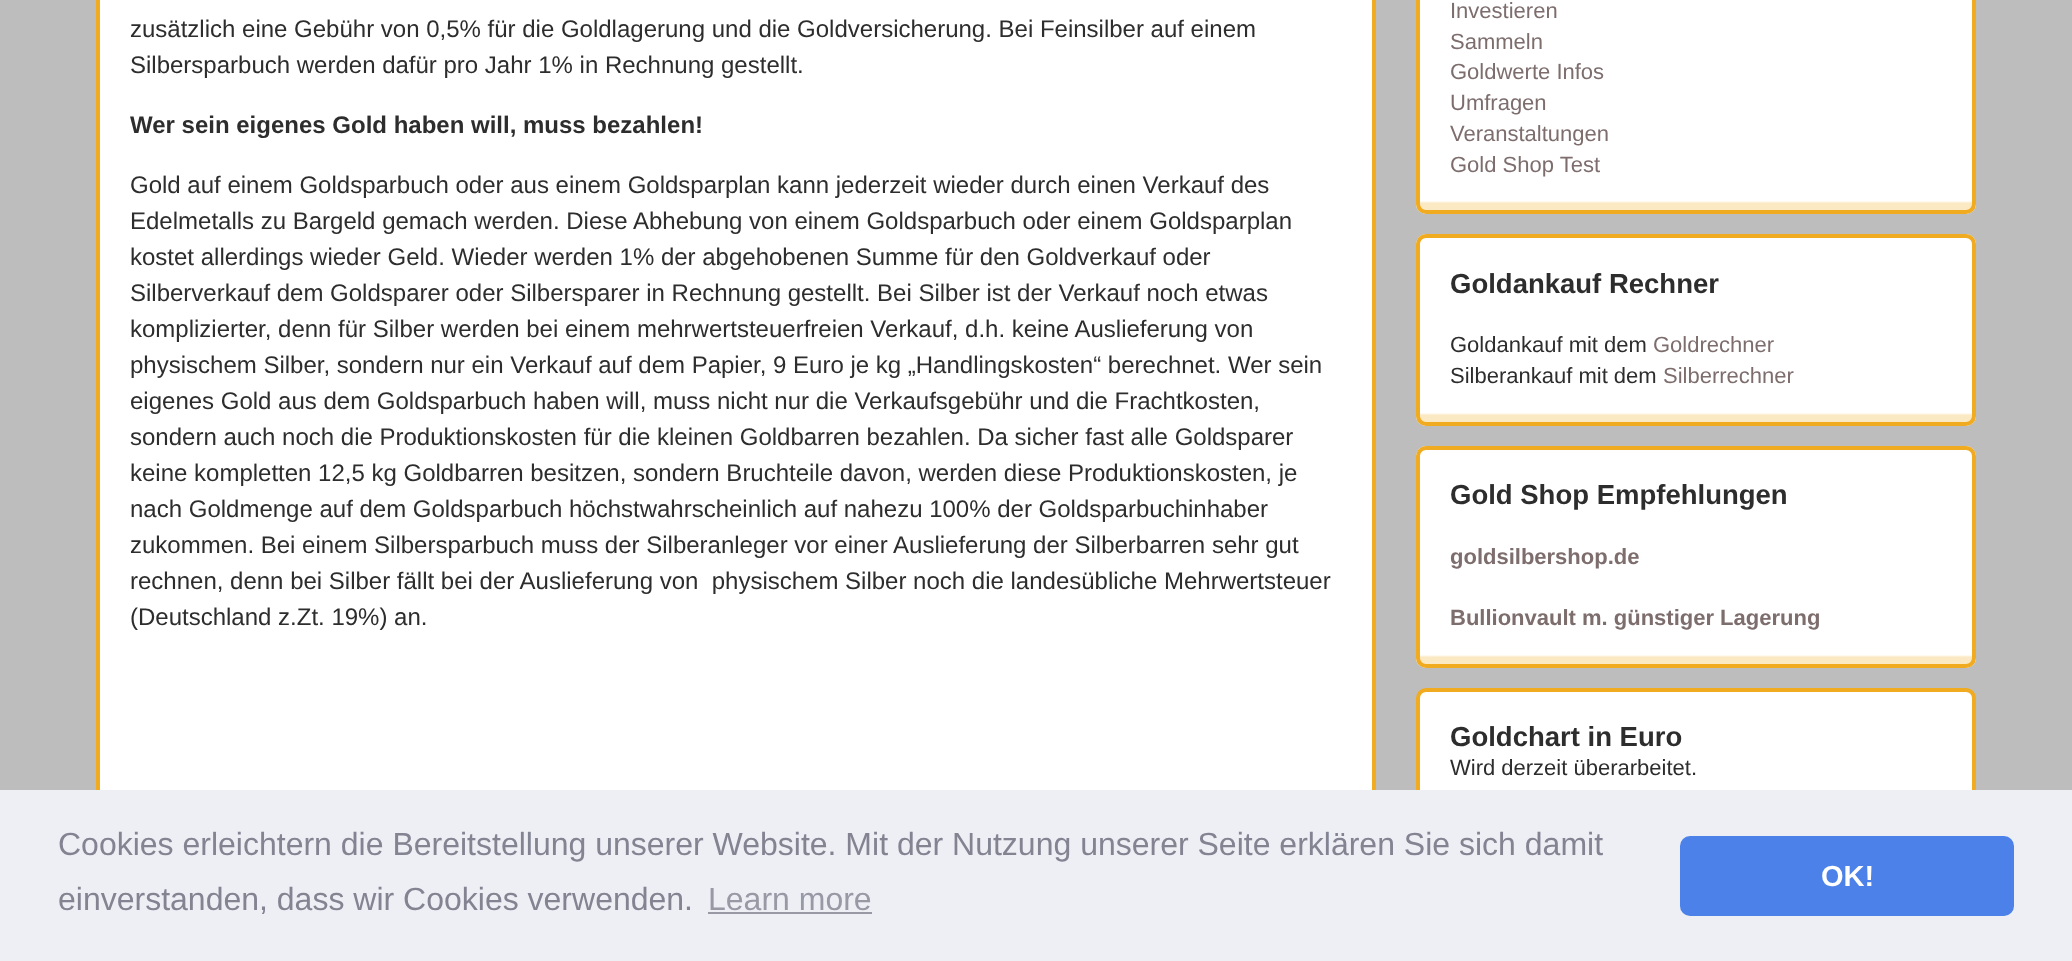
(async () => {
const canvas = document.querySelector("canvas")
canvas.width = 2072
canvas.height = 961
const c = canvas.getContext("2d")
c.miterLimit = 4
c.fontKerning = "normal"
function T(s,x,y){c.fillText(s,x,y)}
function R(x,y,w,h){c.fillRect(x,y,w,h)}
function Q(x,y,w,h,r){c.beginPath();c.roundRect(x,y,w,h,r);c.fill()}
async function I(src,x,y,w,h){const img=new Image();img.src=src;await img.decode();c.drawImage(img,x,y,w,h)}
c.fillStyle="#bdbdbd"
R(0,0,2072,961)
c.fillStyle="#fff"
R(100,0,1272,790)
c.strokeStyle="#f0ab20"
c.lineWidth=4
c.strokeRect(98,-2,1276,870)
c.font="24px Liberation Sans"
c.fillStyle="#2d2d2d"
T("zusätzlich eine Gebühr von 0,5% für die Goldlagerung und die Goldversicherung. Bei Feinsilber auf einem",130,37)
T("Silbersparbuch werden dafür pro Jahr 1% in Rechnung gestellt.",130,73)
c.font="bold 24px Liberation Sans"
T("Wer sein eigenes Gold haben will, muss bezahlen!",130,133)
c.font="24px Liberation Sans"
T("Gold auf einem Goldsparbuch oder aus einem Goldsparplan kann jederzeit wieder durch einen Verkauf des",130,193)
T("Edelmetalls zu Bargeld gemach werden. Diese Abhebung von einem Goldsparbuch oder einem Goldsparplan",130,229)
T("kostet allerdings wieder Geld. Wieder werden 1% der abgehobenen Summe für den Goldverkauf oder",130,265)
T("Silberverkauf dem Goldsparer oder Silbersparer in Rechnung gestellt. Bei Silber ist der Verkauf noch etwas",130,301)
T("komplizierter, denn für Silber werden bei einem mehrwertsteuerfreien Verkauf, d.h. keine Auslieferung von",130,337)
T("physischem Silber, sondern nur ein Verkauf auf dem Papier, 9 Euro je kg „Handlingskosten“ berechnet. Wer sein",130,373)
T("eigenes Gold aus dem Goldsparbuch haben will, muss nicht nur die Verkaufsgebühr und die Frachtkosten,",130,409)
T("sondern auch noch die Produktionskosten für die kleinen Goldbarren bezahlen. Da sicher fast alle Goldsparer",130,445)
T("keine kompletten 12,5 kg Goldbarren besitzen, sondern Bruchteile davon, werden diese Produktionskosten, je",130,481)
T("nach Goldmenge auf dem Goldsparbuch höchstwahrscheinlich auf nahezu 100% der Goldsparbuchinhaber",130,517)
T("zukommen. Bei einem Silbersparbuch muss der Silberanleger vor einer Auslieferung der Silberbarren sehr gut",130,553)
T("rechnen, denn bei Silber fällt bei der Auslieferung von  physischem Silber noch die landesübliche Mehrwertsteuer",130,589)
T("(Deutschland z.Zt. 19%) an.",130,625)
c.fillStyle="#fff"
Q(1416,-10,560,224,10)
await I("1.png",1416,201,560,9)
c.beginPath()
c.roundRect(1418,-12,556,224,8)
c.stroke()
c.font="22px Liberation Sans"
c.fillStyle="#7d6d6d"
T("Investieren",1450,18)
T("Sammeln",1450,49)
T("Goldwerte Infos",1450,79)
T("Umfragen",1450,110)
T("Veranstaltungen",1450,141)
T("Gold Shop Test",1450,172)
c.fillStyle="#fff"
Q(1416,234,560,192,10)
await I("1.png",1416,413,560,9)
c.beginPath()
c.roundRect(1418,236,556,188,8)
c.stroke()
c.font="bold 27.5px Liberation Sans"
c.fillStyle="#2d2d2d"
T("Goldankauf Rechner",1450,293)
c.font="22px Liberation Sans"
T("Goldankauf mit dem",1450,352)
c.fillStyle="#7d6d6d"
T("Goldrechner",1653,352)
c.fillStyle="#2d2d2d"
T("Silberankauf mit dem",1450,383)
c.fillStyle="#7d6d6d"
T("Silberrechner",1663,383)
c.fillStyle="#fff"
Q(1416,446,560,222,10)
await I("1.png",1416,655,560,9)
c.beginPath()
c.roundRect(1418,448,556,218,8)
c.stroke()
c.font="bold 27.5px Liberation Sans"
c.fillStyle="#2d2d2d"
T("Gold Shop Empfehlungen",1450,504)
c.font="bold 22px Liberation Sans"
c.fillStyle="#7d6d6d"
T("goldsilbershop.de",1450,564)
T("Bullionvault m. günstiger Lagerung",1450,625)
c.fillStyle="#fff"
c.beginPath()
c.roundRect(1418,690,556,126,8)
c.fill()
c.stroke()
c.font="bold 27.5px Liberation Sans"
c.fillStyle="#2d2d2d"
T("Goldchart in Euro",1450,746)
c.font="22px Liberation Sans"
T("Wird derzeit überarbeitet.",1450,775)
c.fillStyle="#edeff5"
R(0,790,2072,171)
c.font="32px Liberation Sans"
c.fillStyle="#838391"
T("Cookies erleichtern die Bereitstellung unserer Website. Mit der Nutzung unserer Seite erklären Sie sich damit",58,855)
T("einverstanden, dass wir Cookies verwenden.",58,910)
c.fillStyle="#9899a5"
T("Learn more",708,910)
R(708,912,164,2)
c.fillStyle="#4b81e8"
Q(1680,836,334,80,10)
c.font="bold 29px Liberation Sans"
c.fillStyle="#fff"
T("OK!",1821,886)
})()
